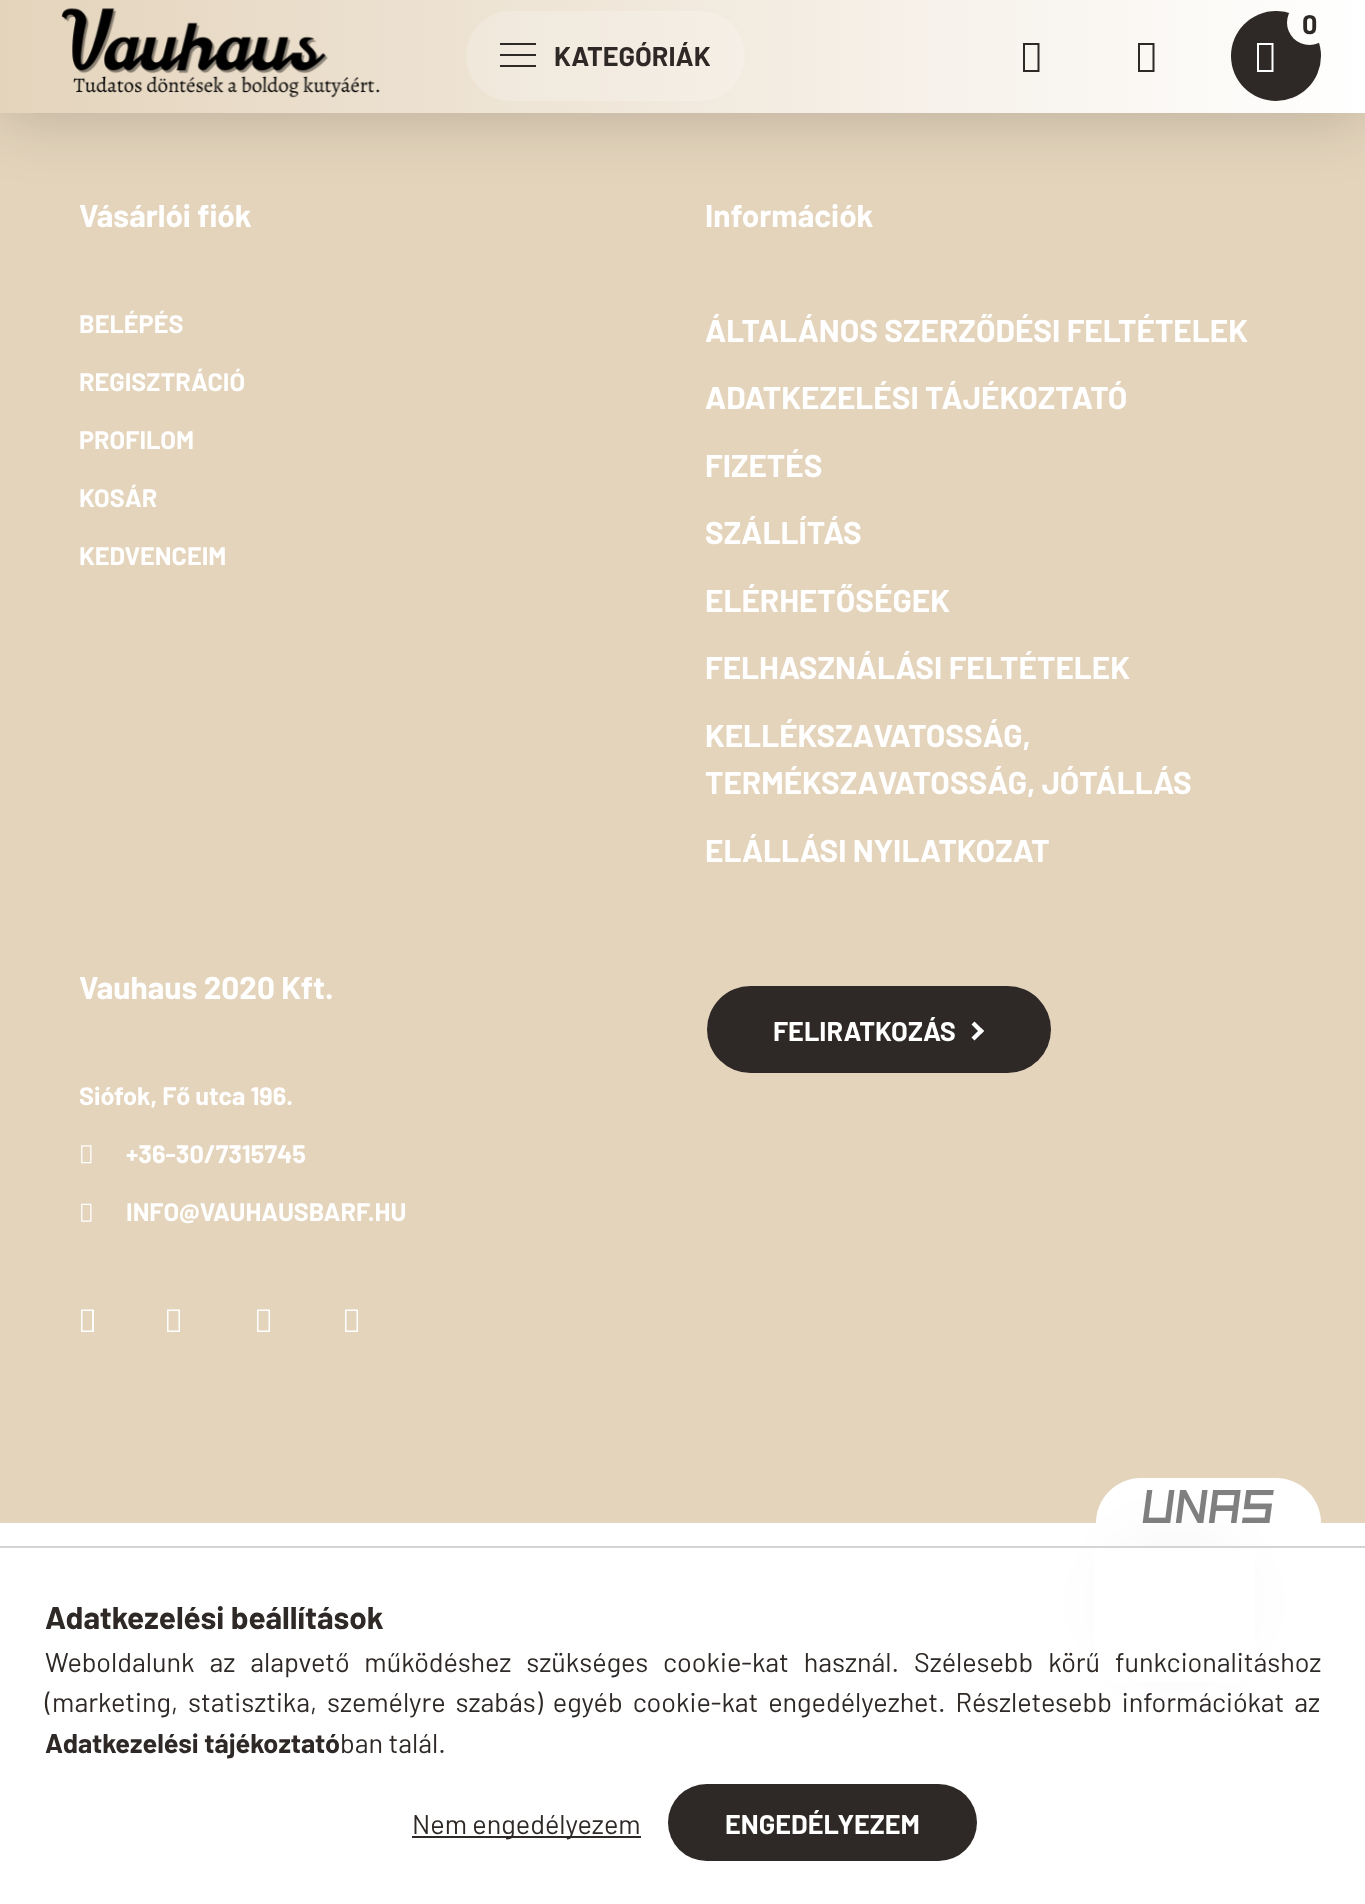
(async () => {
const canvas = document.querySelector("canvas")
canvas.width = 1365
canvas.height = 1904
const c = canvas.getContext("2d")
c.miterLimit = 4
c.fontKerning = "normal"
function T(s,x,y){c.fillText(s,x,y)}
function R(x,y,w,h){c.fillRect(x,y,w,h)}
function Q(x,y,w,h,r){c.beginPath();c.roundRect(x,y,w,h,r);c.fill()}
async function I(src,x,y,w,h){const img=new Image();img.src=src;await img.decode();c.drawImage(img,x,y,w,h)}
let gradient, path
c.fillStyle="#fff"
R(0,0,1365,1904)
c.fillStyle="#e4d4bc"
R(0,113,1365,1410)
c.fillStyle="#00000033"
c.filter="blur(34px)"
c.beginPath()
c.rect(0,0,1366,113)
c.fill()
c.filter="none"
gradient = c.createLinearGradient(0,953,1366,953)
gradient.addColorStop(0,"#e4d4bc")
gradient.addColorStop(1,"#fff")
c.fillStyle = gradient
R(0,0,1365,113)
c.fillStyle="#2e2926"
c.beginPath()
c.arc(1276,56,45,0,7)
c.fill()
gradient = c.createLinearGradient(0,953,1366,953)
gradient.addColorStop(0,"#e4d4bc")
gradient.addColorStop(1,"#fff")
c.fillStyle = gradient
c.beginPath()
c.arc(1309.5,22.5,22.5,0,7)
c.fill()
c.font="bold 27px Barlow"
c.fillStyle="#2e2926"
T("0",1302,34)
c.fillStyle="#fff"
path = new Path2D("M1257 72v-29h16.5v29zm2-2h12.5v-25h-12.5z")
c.fill(path)
c.fillStyle="#2e2926"
path = new Path2D("M1023 72v-29h16.5v29zm2-2h12.5v-25h-12.5z")
c.fill(path)
path = new Path2D("M1138 72v-29h16.5v29zm2-2h12.5v-25h-12.5z")
c.fill(path)
await I("1.png",61,8,319,90)
c.fillStyle="#ffffff33"
Q(466,11,279,90,45)
c.fillStyle="#2e2926"
R(500,43,36,2)
R(500,54,36,2)
R(500,65,36,2)
T("KATEGÓRIÁK",554,66)
c.font="bold 31.5px Barlow"
c.fillStyle="#fff"
T("Vásárlói fiók",79,227)
c.font="bold 25.25px Barlow"
T("BELÉPÉS",79,333)
T("REGISZTRÁCIÓ",79,391)
T("PROFILOM",79,449)
T("KOSÁR",79,507)
T("KEDVENCEIM",79,565)
c.font="bold 31.5px Barlow"
T("Információk",705,227)
T("ÁLTALÁNOS SZERZŐDÉSI FELTÉTELEK",705,342)
T("ADATKEZELÉSI TÁJÉKOZTATÓ",705,409)
T("FIZETÉS",705,477)
T("SZÁLLÍTÁS",705,544)
T("ELÉRHETŐSÉGEK",705,612)
T("FELHASZNÁLÁSI FELTÉTELEK",705,679)
T("KELLÉKSZAVATOSSÁG,",705,747)
T("TERMÉKSZAVATOSSÁG, JÓTÁLLÁS",705,794)
T("ELÁLLÁSI NYILATKOZAT",705,862)
T("Vauhaus 2020 Kft.",79,999)
c.font="bold 25.25px Barlow"
T("Siófok, Fő utca 196.",79,1105)
await I("2.png",81,1145,11,19)
T("+36-30/7315745",126,1163)
await I("3.png",81,1203,11,19)
T("INFO@VAUHAUSBARF.HU",126,1221)
path = new Path2D("M81 1332v-22.5h13v22.5zm1.5-1.5h9.5v-19.5h-9.5z")
c.fill(path)
path = new Path2D("M167 1332v-22.5h13v22.5zm1.5-1.5h10v-19.5h-10z")
c.fill(path)
path = new Path2D("M257 1332v-22.5h13v22.5zm1.5-1.5h10v-19.5h-10z")
c.fill(path)
path = new Path2D("M345 1332v-22.5h13v22.5zm1.5-1.5h10v-19.5h-10z")
c.fill(path)
gradient = c.createLinearGradient(707,1029,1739,1029)
gradient.addColorStop(.33,"#2e2926")
gradient.addColorStop(.67,"#e4d4bc")
c.fillStyle = gradient
Q(707,986,344,87,43.5)
c.font="bold 27px Barlow"
c.fillStyle="#fff"
T("FELIRATKOZÁS",773,1041)
path = new Path2D("M971.5 1037.5l9.5-9.5l3 3l-9.5 9.5z")
c.fill(path)
path = new Path2D("M974.5 1021.5l9.5 9.5l-3 3l-9.5-9.5z")
c.fill(path)
c.beginPath()
c.roundRect(1096,1478,225,45,[45,45,0,0])
c.fill()
await I("4.png",1142,1490,132,33)
c.fillStyle="#0000000f"
c.filter="blur(34px)"
c.beginPath()
c.roundRect(1118,1546,113,112,56)
c.fill()
c.filter="none"
c.fillStyle="#fff"
R(1094,1548,161,134)
c.fillStyle="#d5d4d4"
R(0,1546,1365,2)
c.font="bold 31.5px Barlow"
c.fillStyle="#2e2926"
T("Adatkezelési beállítások",45,1629)
c.wordSpacing="9.5px"
c.font="27px Barlow"
T("Weboldalunk az alapvető működéshez szükséges cookie-kat használ. Szélesebb körű funkcionalitáshoz",45,1672)
c.wordSpacing="4.5px"
T("(marketing, statisztika, személyre szabás) egyéb cookie-kat engedélyezhet. Részletesebb információkat az",45,1712)
c.wordSpacing="0px"
c.font="bold 27px Barlow"
T("Adatkezelési tájékoztató",45,1753)
c.font="27px Barlow"
T("ban talál.",340,1753)
R(412,1836,229,2)
T("Nem engedélyezem",412,1834)
gradient = c.createLinearGradient(668,1823,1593,1823)
gradient.addColorStop(.33,"#2e2926")
gradient.addColorStop(.67,"#e4d4bc")
c.fillStyle = gradient
Q(668,1784,309,77,38.5)
c.font="bold 27px Barlow"
c.fillStyle="#fff"
T("ENGEDÉLYEZEM",725,1834)
})()
